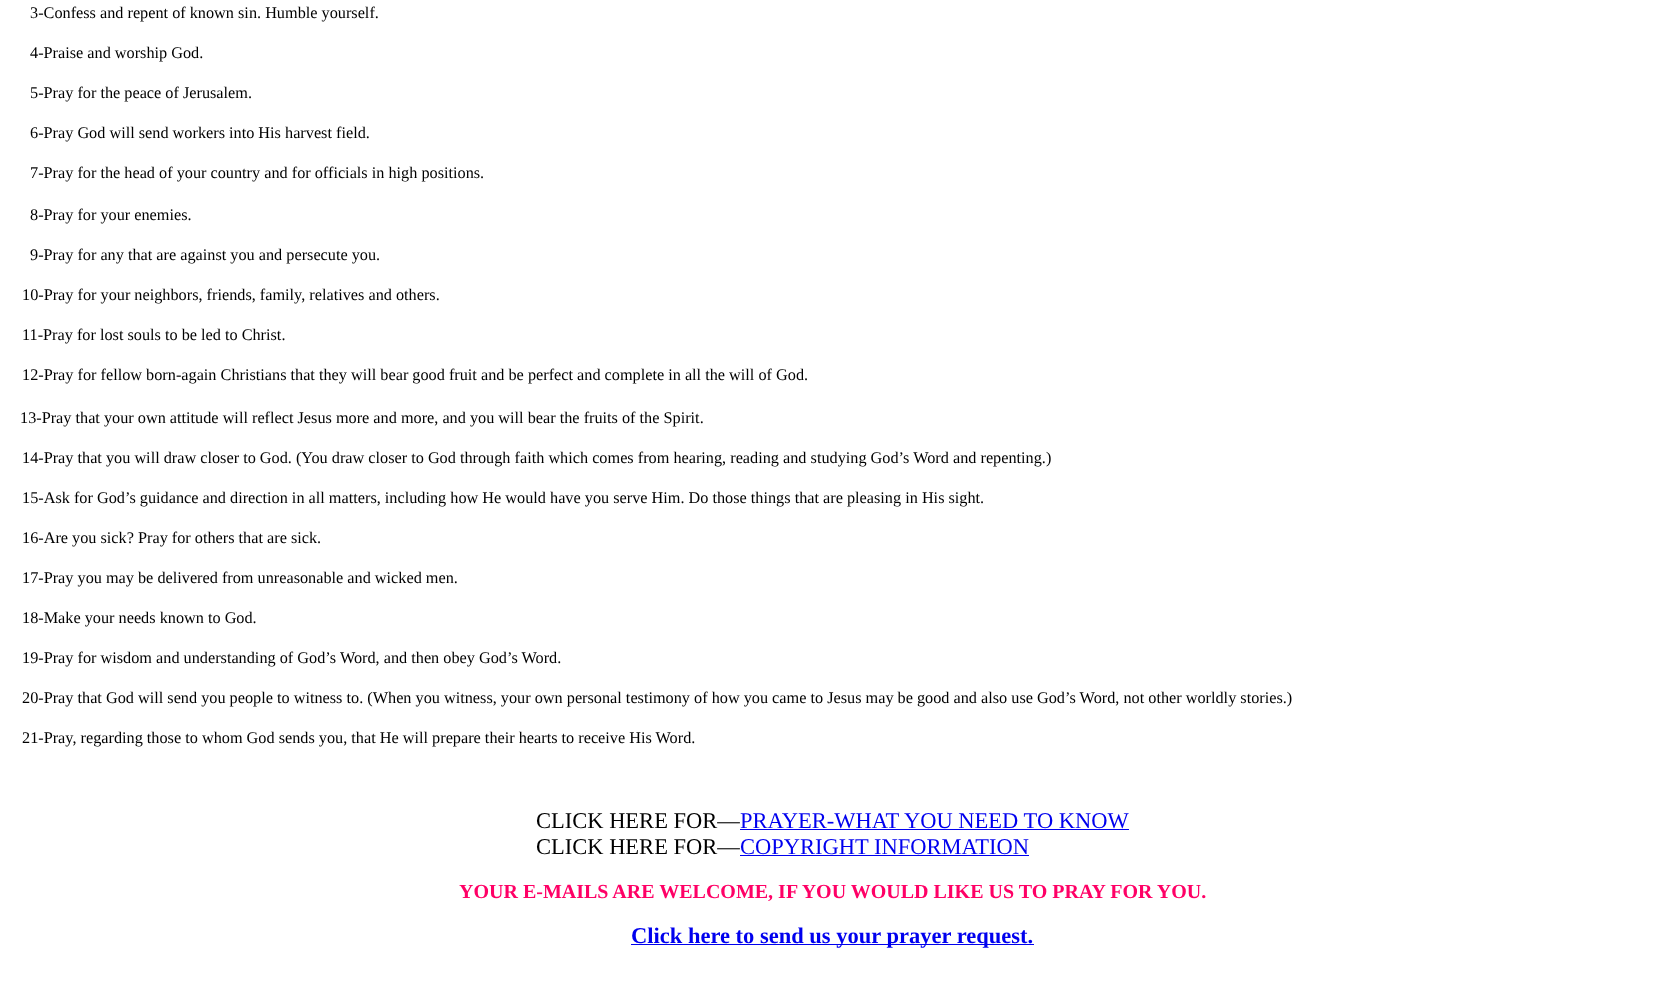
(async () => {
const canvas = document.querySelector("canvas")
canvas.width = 1665
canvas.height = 999
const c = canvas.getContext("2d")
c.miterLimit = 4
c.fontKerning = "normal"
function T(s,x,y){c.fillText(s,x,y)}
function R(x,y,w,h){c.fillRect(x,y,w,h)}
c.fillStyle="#fff"
R(0,0,1665,999)
c.font="16.25px Liberation Serif"
c.fillStyle="#000"
T("3-Confess and repent of known sin. Humble yourself.",30,18)
T("4-Praise and worship God.",30,58)
T("5-Pray for the peace of Jerusalem.",30,98)
T("6-Pray God will send workers into His harvest field.",30,138)
T("7-Pray for the head of your country and for officials in high positions.",30,178)
T("8-Pray for your enemies.",30,220)
T("9-Pray for any that are against you and persecute you.",30,260)
T("10-Pray for your neighbors, friends, family, relatives and others.",22,300)
T("11-Pray for lost souls to be led to Christ.",22,340)
T("12-Pray for fellow born-again Christians that they will bear good fruit and be perfect and complete in all the will of God.",22,380)
T("13-Pray that your own attitude will reflect Jesus more and more, and you will bear the fruits of the Spirit.",20,423)
T("14-Pray that you will draw closer to God. (You draw closer to God through faith which comes from hearing, reading and studying God’s Word and repenting.)",22,463)
T("15-Ask for God’s guidance and direction in all matters, including how He would have you serve Him. Do those things that are pleasing in His sight.",22,503)
T("16-Are you sick? Pray for others that are sick.",22,543)
T("17-Pray you may be delivered from unreasonable and wicked men.",22,583)
T("18-Make your needs known to God.",22,623)
T("19-Pray for wisdom and understanding of God’s Word, and then obey God’s Word.",22,663)
T("20-Pray that God will send you people to witness to. (When you witness, your own personal testimony of how you came to Jesus may be good and also use God’s Word, not other worldly stories.)",22,703)
T("21-Pray, regarding those to whom God sends you, that He will prepare their hearts to receive His Word.",22,743)
c.font="22.5px Liberation Serif"
T("CLICK HERE FOR—",536,828)
c.fillStyle="#00e"
R(740,829,389,1)
T("PRAYER-WHAT",740,828)
T("YOU NEED TO KNOW",904,828)
c.fillStyle="#000"
T("CLICK HERE FOR—",536,854)
c.fillStyle="#00e"
R(740,855,289,1)
T("COPYRIGHT INFORMATION",740,854)
c.font="bold 20px Liberation Serif"
c.fillStyle="#f06"
T("YOUR E-MAILS ARE WELCOME, IF YOU WOULD LIKE US TO PRAY FOR YOU.",459,898)
c.fillStyle="#00e"
R(631,944,403,1)
c.font="bold 22.5px Liberation Serif"
T("Click here to send us your prayer request.",631,943)
})()
